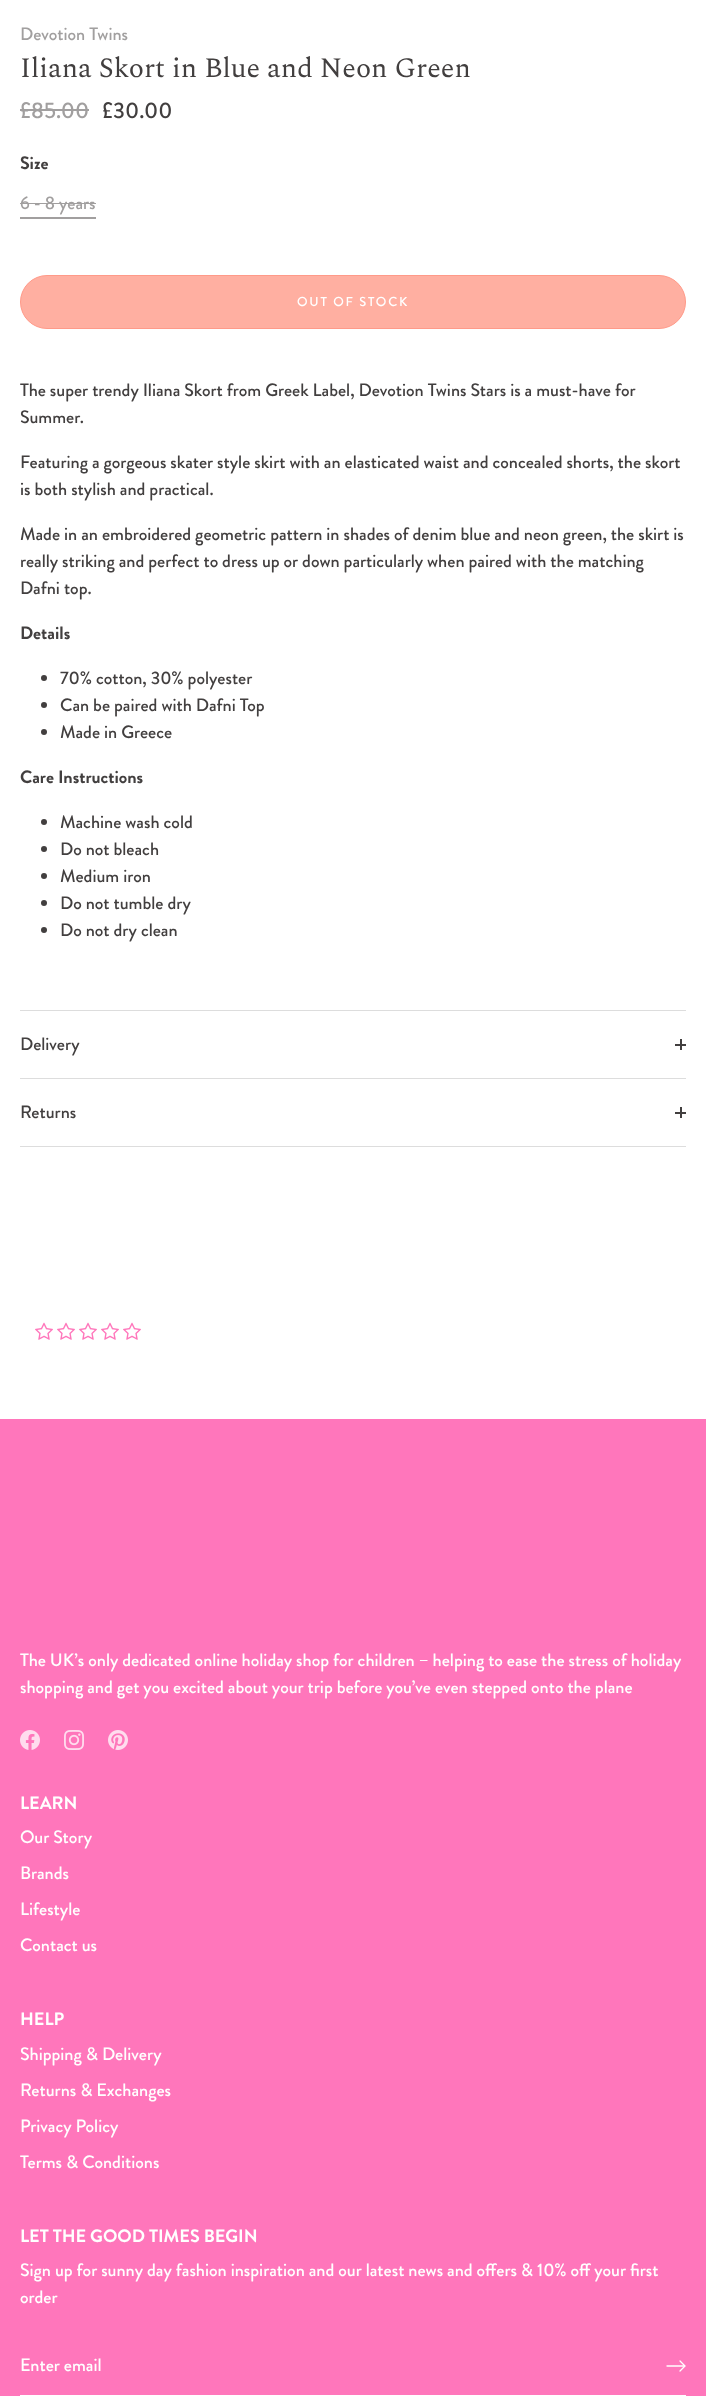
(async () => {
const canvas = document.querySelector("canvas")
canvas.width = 706
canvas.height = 2396
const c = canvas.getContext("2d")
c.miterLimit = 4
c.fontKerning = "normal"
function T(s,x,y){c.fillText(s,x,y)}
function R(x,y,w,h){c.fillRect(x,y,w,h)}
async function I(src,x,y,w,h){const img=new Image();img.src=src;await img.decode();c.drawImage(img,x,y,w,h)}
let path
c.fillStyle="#fff"
R(0,0,706,2396)
c.font="500 18px Brandon Grotesque"
c.fillStyle="#a19f9f"
T("Devotion Twins",20,40)
c.font="28.1px Spectral"
c.fillStyle="#423f3f"
T("Iliana Skort in Blue and Neon Green",20,77)
c.font="500 22.5px Brandon Grotesque"
c.fillStyle="#a19f9f"
T("£85.00",20,118)
R(20,109,69,2)
c.fillStyle="#423f3f"
T("£30.00",102,118)
c.font="bold 18px Brandon Grotesque"
T("Size",20,169)
c.font="500 18px Brandon Grotesque"
c.fillStyle="#a19f9f"
T("6 - 8 years",20,209)
R(20,203,76,1)
R(20,217,76,2)
c.fillStyle="#ffafa1"
c.beginPath()
c.roundRect(20.5,275.5,665,53,26.5)
c.fill()
c.strokeStyle="#ff9a89"
c.stroke()
c.letterSpacing="1.75px"
c.font="500 13px Brandon Grotesque"
c.fillStyle="#fff"
T("OUT OF STOCK",297,306)
c.letterSpacing="0px"
c.font="500 18px Brandon Grotesque"
c.fillStyle="#423f3f"
T("The super trendy Iliana Skort from Greek Label, Devotion Twins Stars is a must-have for",20,396)
T("Summer.",20,423)
T("Featuring a gorgeous skater style skirt with an elasticated waist and concealed shorts, the skort",20,468)
T("is both stylish and practical.",20,495)
T("Made in an embroidered geometric pattern in shades of denim blue and neon green, the skirt is",20,540)
T("really striking and perfect to dress up or down particularly when paired with the matching",20,567)
T("Dafni top.",20,594)
c.font="bold 18px Brandon Grotesque"
T("Details",20,639)
c.beginPath()
c.arc(44,678,3,0,7)
c.fill()
c.font="500 18px Brandon Grotesque"
T("70% cotton, 30% polyester",60,684)
c.beginPath()
c.arc(44,705,3,0,7)
c.fill()
T("Can be paired with Dafni Top",60,711)
c.beginPath()
c.arc(44,732,3,0,7)
c.fill()
T("Made in Greece",60,738)
c.font="bold 18px Brandon Grotesque"
T("Care Instructions",20,783)
c.beginPath()
c.arc(44,822,3,0,7)
c.fill()
c.font="500 18px Brandon Grotesque"
T("Machine wash cold",60,828)
c.beginPath()
c.arc(44,849,3,0,7)
c.fill()
T("Do not bleach",60,855)
c.beginPath()
c.arc(44,876,3,0,7)
c.fill()
T("Medium iron",60,882)
c.beginPath()
c.arc(44,903,3,0,7)
c.fill()
T("Do not tumble dry",60,909)
c.beginPath()
c.arc(44,930,3,0,7)
c.fill()
T("Do not dry clean",60,936)
c.fillStyle="#ddd"
R(20,1010,666,1)
R(20,1078,666,1)
c.fillStyle="#423f3f"
T("Delivery",20,1050)
R(680,1039,2,11)
R(675,1044,11,2)
c.fillStyle="#ddd"
R(20,1146,666,1)
c.fillStyle="#423f3f"
T("Returns",20,1118)
R(680,1107,2,11)
R(675,1112,11,2)
await I("1.png",35,1322,18,18)
await I("1.png",57,1322,18,18)
await I("1.png",79,1322,18,18)
await I("1.png",101,1322,18,18)
await I("1.png",123,1322,18,18)
c.fillStyle="#ff76bb"
R(0,1419,706,977)
c.fillStyle="#fff"
T("The UK’s only dedicated online holiday shop for children – helping to ease the stress of holiday",20,1666)
T("shopping and get you excited about your trip before you’ve even stepped onto the plane",20,1693)
await I("2.png",20,1730,20,20)
await I("3.png",64,1730,20,20)
await I("4.png",108,1730,20,20)
c.font="bold 18px Brandon Grotesque"
T("LEARN",20,1809)
c.font="500 18px Brandon Grotesque"
T("Our Story",20,1843)
T("Brands",20,1879)
T("Lifestyle",20,1915)
T("Contact us",20,1951)
c.font="bold 18px Brandon Grotesque"
T("HELP",20,2025)
c.font="500 18px Brandon Grotesque"
T("Shipping & Delivery",20,2060)
T("Returns & Exchanges",20,2096)
T("Privacy Policy",20,2132)
T("Terms & Conditions",20,2168)
c.font="bold 18px Brandon Grotesque"
T("LET THE GOOD TIMES BEGIN",20,2242)
c.font="500 18px Brandon Grotesque"
T("Sign up for sunny day fashion inspiration and our latest news and offers & 10% off your first",20,2276)
T("order",20,2303)
R(20,2395,666,1)
T("Enter email",20,2371)
path = new Path2D("M680 2371l5-5l-5-5")
c.strokeStyle="#fff"
c.lineWidth=1.3
c.lineCap="round"
c.stroke(path)
path = new Path2D("M684 2366h-17")
c.lineJoin="round"
c.stroke(path)
})()
